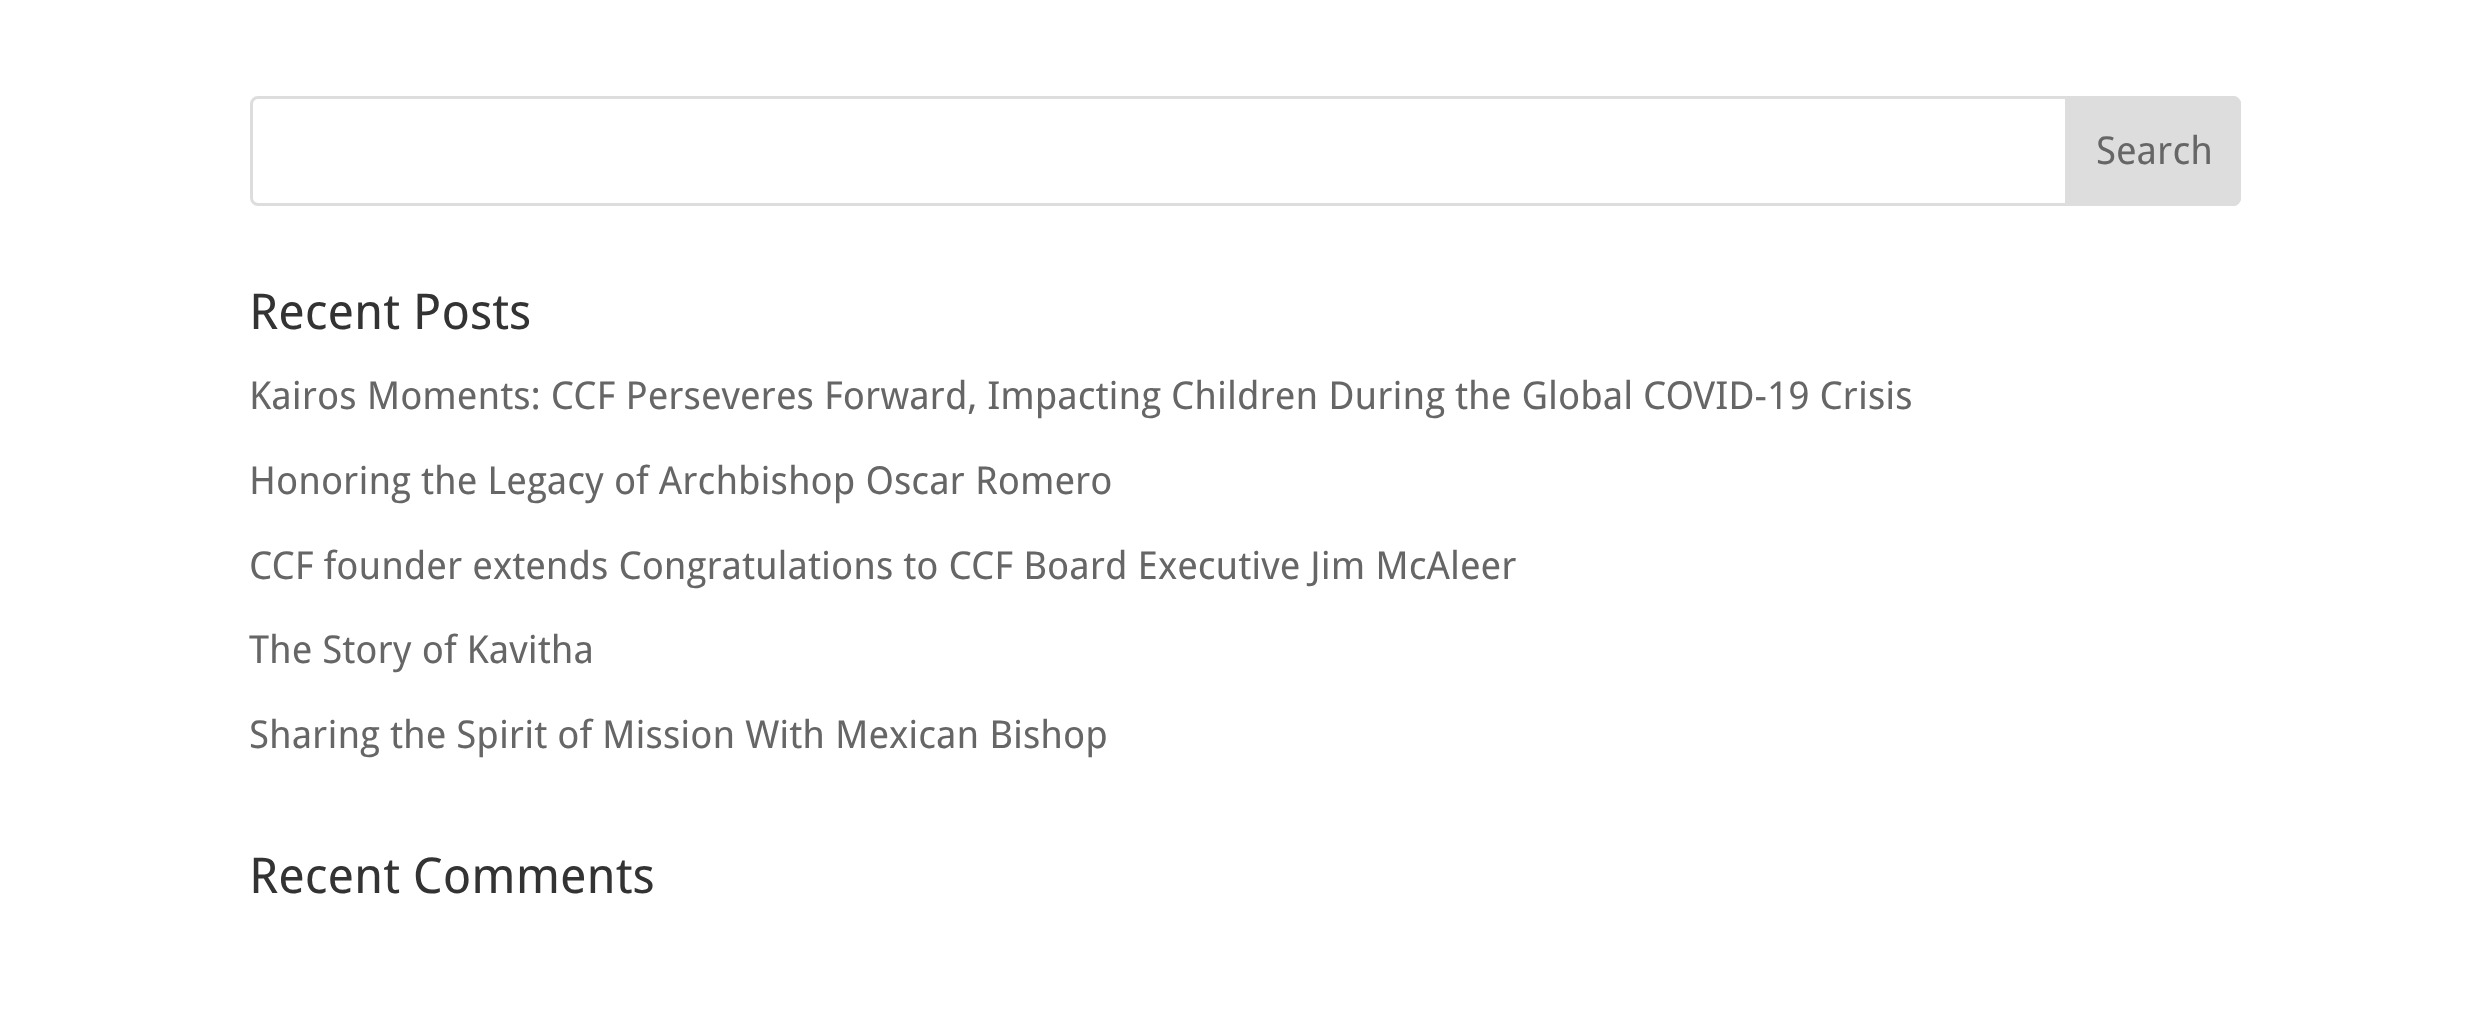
(async () => {
const canvas = document.querySelector("canvas")
canvas.width = 2490
canvas.height = 1018
const c = canvas.getContext("2d")
c.miterLimit = 4
c.fontKerning = "normal"
function T(s,x,y){c.fillText(s,x,y)}
function R(x,y,w,h){c.fillRect(x,y,w,h)}
c.fillStyle="#fff"
R(0,0,2490,1018)
c.beginPath()
c.roundRect(251.5,97.5,1988,107,6.5)
c.strokeStyle="#ddd"
c.lineWidth=3
c.stroke()
c.fillStyle="#ddd"
c.beginPath()
c.roundRect(2066.5,97.5,173,107,[0,6.5,6.5,0])
c.fill()
c.stroke()
c.font="38.5px Droid Sans"
c.fillStyle="#666"
T("Search",2096,164)
c.font="49.5px Droid Sans"
c.fillStyle="#333"
T("Recent Posts",249,329)
c.font="38.5px Droid Sans"
c.fillStyle="#666"
T("Kairos Moments: CCF Perseveres Forward, Impacting Children During the Global COVID-19 Crisis",249,409)
T("Honoring the Legacy of Archbishop Oscar Romero",249,494)
T("CCF founder extends Congratulations to CCF Board Executive Jim McAleer",249,579)
T("The Story of Kavitha",249,663)
T("Sharing the Spirit of Mission With Mexican Bishop",249,748)
c.font="49.5px Droid Sans"
c.fillStyle="#333"
T("Recent Comments",249,893)
})()
